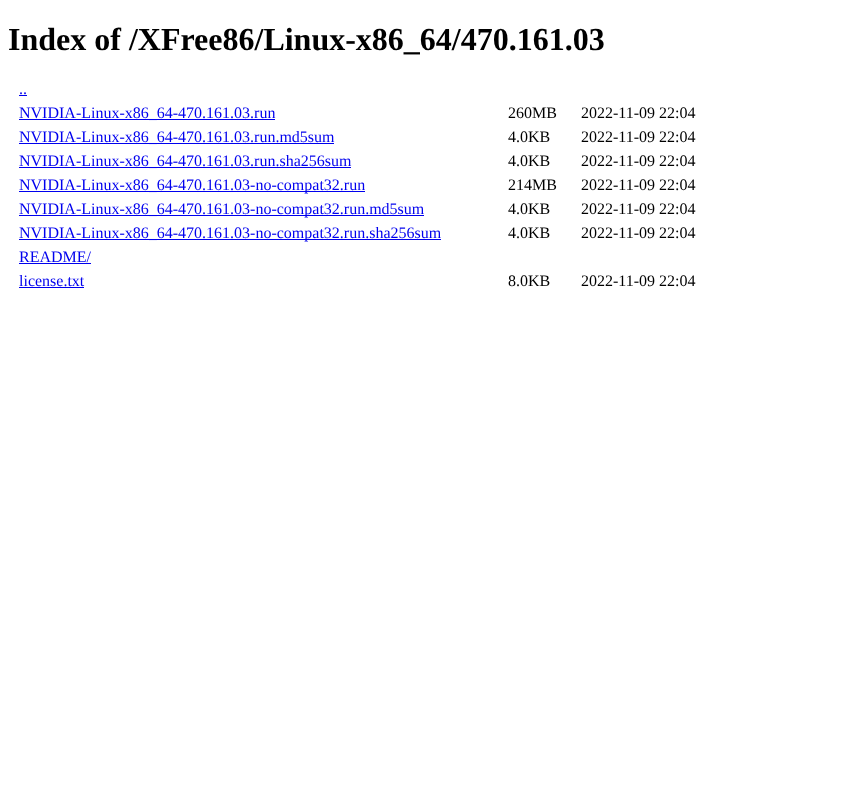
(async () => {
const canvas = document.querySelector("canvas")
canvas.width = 860
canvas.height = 790
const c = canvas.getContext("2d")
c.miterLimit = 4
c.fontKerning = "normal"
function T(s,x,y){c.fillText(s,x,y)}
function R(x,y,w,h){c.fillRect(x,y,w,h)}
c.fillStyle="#fff"
R(0,0,860,790)
c.font="bold 32px Liberation Serif"
c.fillStyle="#000"
T("Index of /XFree86/Linux-x86_64/470.161.03",8,50)
c.font="16px Liberation Serif"
c.fillStyle="#00e"
T("..",19,94)
R(19,95,8,1)
R(19,119,256,1)
T("NVIDIA-Linux-x86_64-470.161.03.run",19,118)
c.fillStyle="#000"
T("260MB",508,118)
T("2022-11-09 22:04",581,118)
c.fillStyle="#00e"
R(19,143,315,1)
T("NVIDIA-Linux-x86_64-470.161.03.run.md5sum",19,142)
c.fillStyle="#000"
T("4.0KB",508,142)
T("2022-11-09 22:04",581,142)
c.fillStyle="#00e"
R(19,167,332,1)
T("NVIDIA-Linux-x86_64-470.161.03.run.sha256sum",19,166)
c.fillStyle="#000"
T("4.0KB",508,166)
T("2022-11-09 22:04",581,166)
c.fillStyle="#00e"
R(19,191,346,1)
T("NVIDIA-Linux-x86_64-470.161.03-no-compat32.run",19,190)
c.fillStyle="#000"
T("214MB",508,190)
T("2022-11-09 22:04",581,190)
c.fillStyle="#00e"
R(19,215,405,1)
T("NVIDIA-Linux-x86_64-470.161.03-no-compat32.run.md5sum",19,214)
c.fillStyle="#000"
T("4.0KB",508,214)
T("2022-11-09 22:04",581,214)
c.fillStyle="#00e"
R(19,239,422,1)
T("NVIDIA-Linux-x86_64-470.161.03-no-compat32.run.sha256sum",19,238)
c.fillStyle="#000"
T("4.0KB",508,238)
T("2022-11-09 22:04",581,238)
c.fillStyle="#00e"
T("README/",19,262)
R(19,263,72,1)
T("license.txt",19,286)
R(19,287,65,1)
c.fillStyle="#000"
T("8.0KB",508,286)
T("2022-11-09 22:04",581,286)
})()
